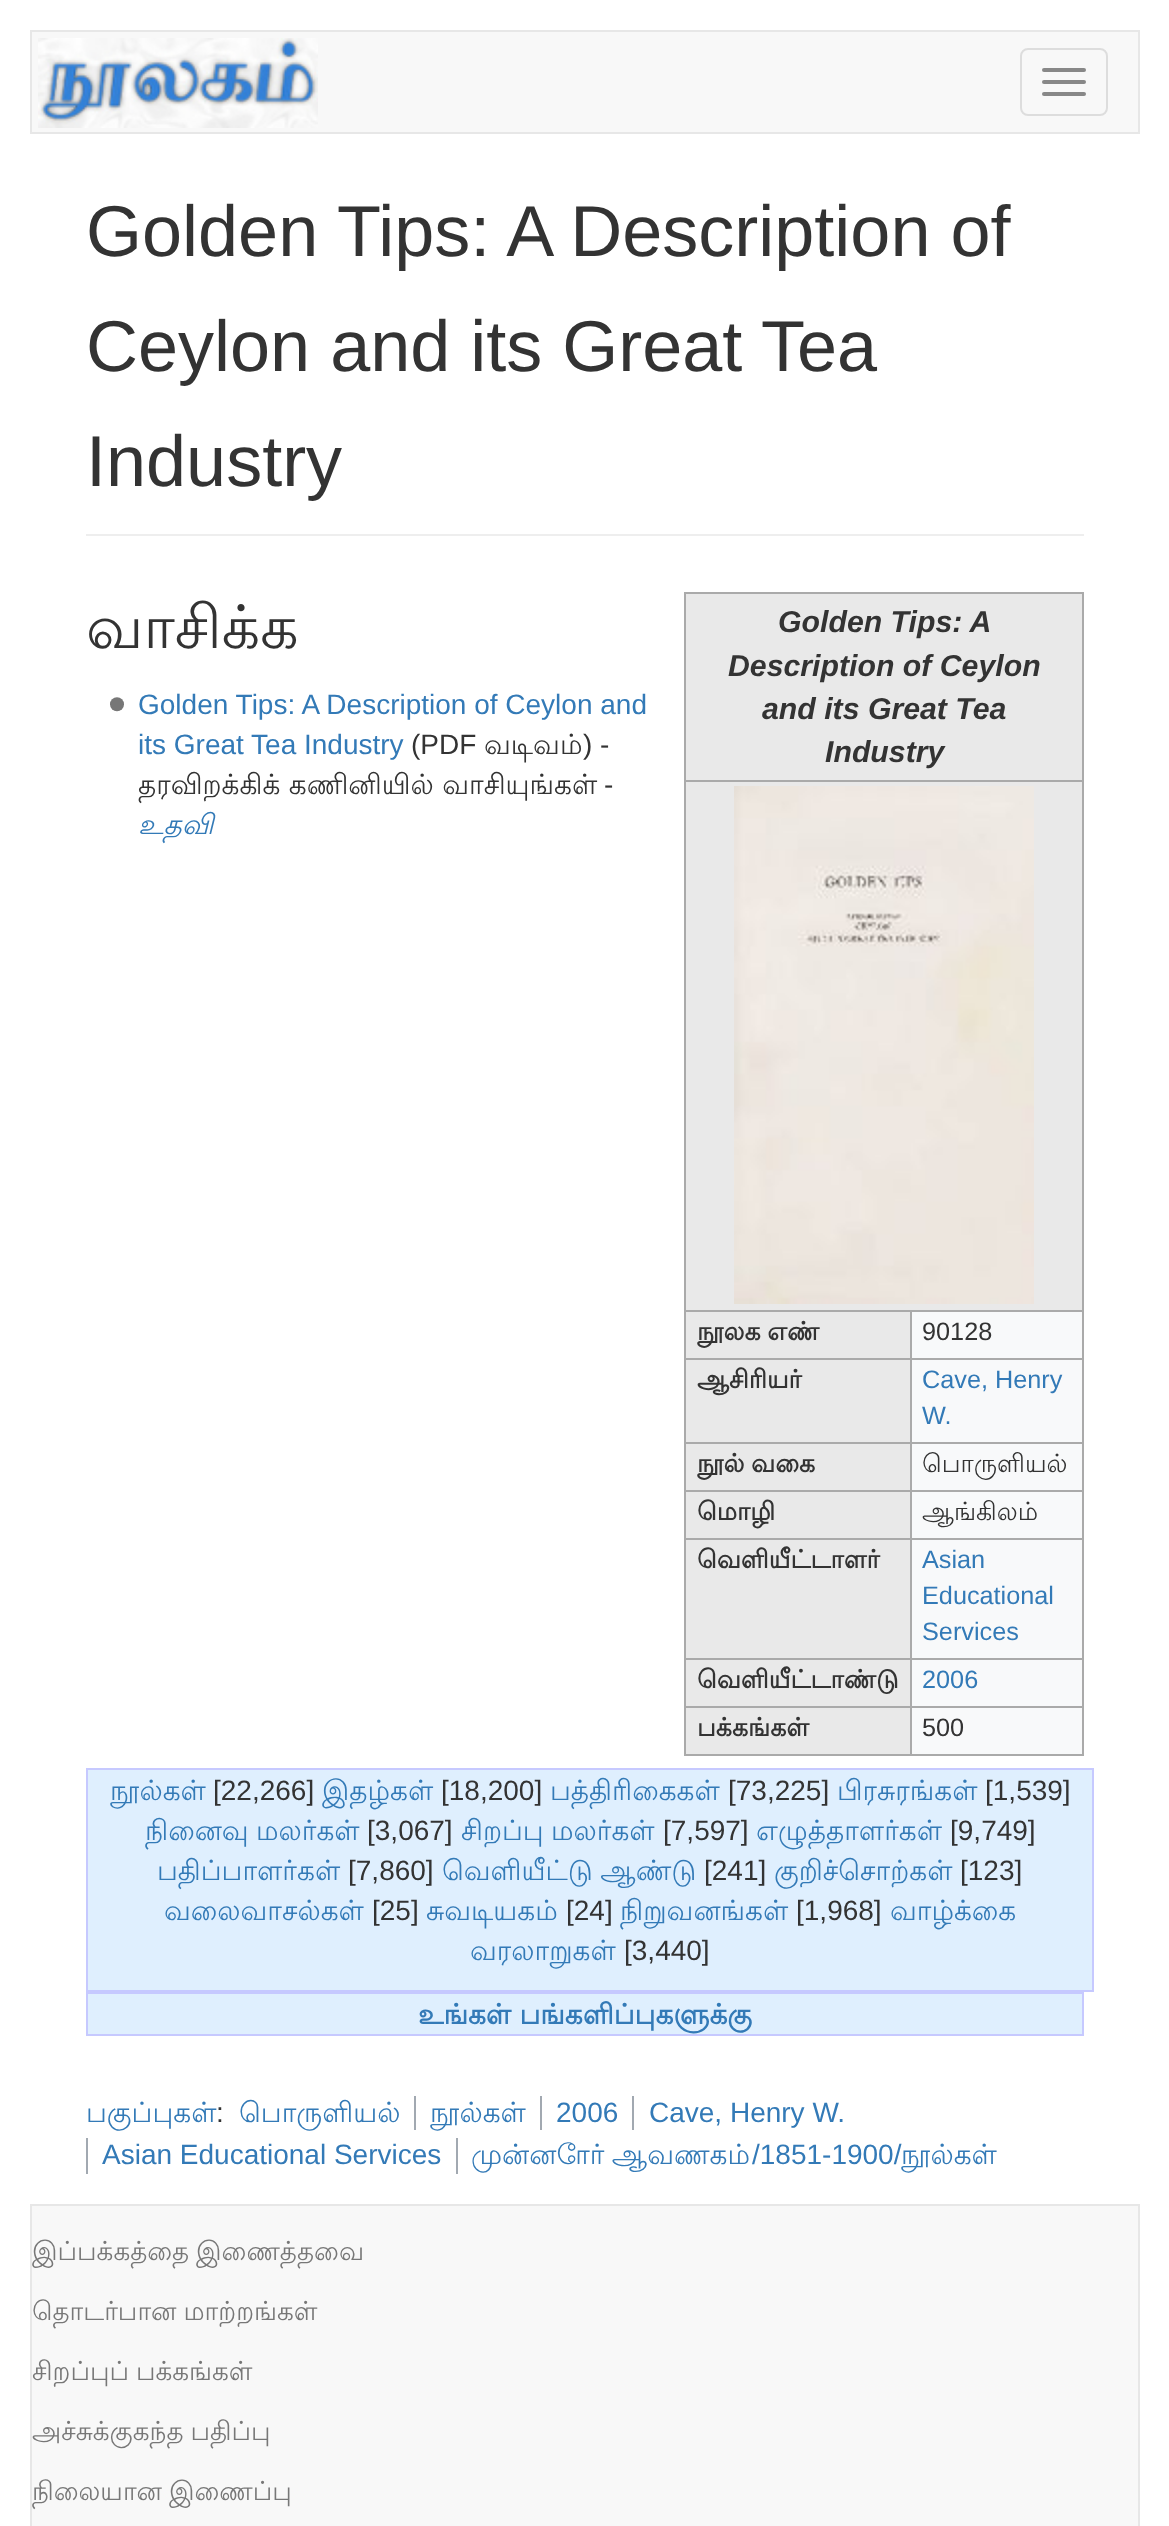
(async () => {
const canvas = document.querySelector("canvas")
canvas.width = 1169
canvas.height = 2526
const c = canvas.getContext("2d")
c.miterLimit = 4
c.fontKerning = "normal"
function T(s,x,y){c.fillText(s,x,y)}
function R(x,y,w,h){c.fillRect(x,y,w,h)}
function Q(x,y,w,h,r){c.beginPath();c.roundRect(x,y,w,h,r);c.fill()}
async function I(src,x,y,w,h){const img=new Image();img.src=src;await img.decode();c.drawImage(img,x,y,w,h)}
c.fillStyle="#fff"
R(0,0,1169,2526)
c.fillStyle="#f8f8f8"
c.beginPath()
c.rect(31,31,1108,102)
c.fill()
c.strokeStyle="#e7e7e7"
c.lineWidth=2
c.stroke()
await I("1.png",38,38,280,90)
c.beginPath()
c.roundRect(1021,49,86,66,7)
c.strokeStyle="#ddd"
c.stroke()
c.fillStyle="#888"
Q(1042,68,44,4,2)
Q(1042,80,44,4,2)
Q(1042,92,44,4,2)
c.fillStyle="#eee"
R(86,534,998,2)
c.font="72px Liberation Sans"
c.fillStyle="#333"
T("Golden Tips: A Description of",86,256)
T("Ceylon and its Great Tea",86,371)
T("Industry",86,486)
c.font="60px Lohit Tamil"
T("வாசிக்க",86,648)
c.fillStyle="#f8f9fa"
R(912,1312,170,442)
c.fillStyle="#e9e9e9"
R(686,594,396,186)
c.fillStyle="#aaa"
R(684,592,400,2)
R(684,780,400,2)
R(910,1310,174,2)
R(910,1358,174,2)
R(910,1442,174,2)
R(910,1490,174,2)
R(910,1538,174,2)
R(910,1658,174,2)
R(910,1706,174,2)
R(1082,1706,2,50)
R(1082,1658,2,50)
R(1082,1538,2,122)
R(1082,1490,2,50)
R(1082,1442,2,50)
R(1082,1358,2,86)
R(1082,1310,2,50)
R(1082,780,2,532)
R(1082,592,2,190)
R(910,1754,174,2)
R(910,1706,2,50)
R(684,1706,228,2)
R(910,1658,2,50)
R(684,1658,228,2)
R(910,1538,2,122)
R(684,1538,228,2)
R(910,1490,2,50)
R(684,1490,228,2)
R(910,1442,2,50)
R(684,1442,228,2)
R(910,1358,2,86)
R(684,1358,228,2)
R(910,1310,2,50)
R(684,1310,228,2)
R(684,1754,228,2)
R(684,1706,2,50)
R(684,1658,2,50)
R(684,1538,2,122)
R(684,1490,2,50)
R(684,1442,2,50)
R(684,1358,2,86)
R(684,1310,2,50)
R(684,780,2,532)
R(684,592,2,190)
c.font="italic bold 30.25px Liberation Sans"
c.fillStyle="#333"
T("Golden Tips: A",778,632)
T("Description of Ceylon",728,676)
T("and its Great Tea",762,719)
T("Industry",825,762)
c.fillStyle="#e9e9e9"
R(686,782,396,528)
await I("2.png",734,786,300,518)
R(686,1312,224,46)
c.wordSpacing="-1px"
c.font="bold 25.25px Lohit Tamil"
c.fillStyle="#333"
T("நூலக எண்",697,1340)
c.wordSpacing="0px"
c.font="25.25px Liberation Sans"
T("90128",922,1340)
c.fillStyle="#e9e9e9"
R(686,1360,224,82)
c.font="bold 25.25px Lohit Tamil"
c.fillStyle="#333"
T("ஆசிரியர்",697,1388)
c.font="25.25px Liberation Sans"
c.fillStyle="#337ab7"
T("Cave, Henry",922,1388)
T("W.",922,1424)
c.fillStyle="#e9e9e9"
R(686,1444,224,46)
c.wordSpacing="-1px"
c.font="bold 25.25px Lohit Tamil"
c.fillStyle="#333"
T("நூல் வகை",697,1472)
c.wordSpacing="0px"
c.font="25.25px Lohit Tamil"
T("பொருளியல்",922,1472)
c.fillStyle="#e9e9e9"
R(686,1492,224,46)
c.font="bold 25.25px Lohit Tamil"
c.fillStyle="#333"
T("மொழி",697,1520)
c.font="25.25px Lohit Tamil"
T("ஆங்கிலம்",922,1520)
c.fillStyle="#e9e9e9"
R(686,1540,224,118)
c.font="bold 25.25px Lohit Tamil"
c.fillStyle="#333"
T("வெளியீட்டாளர்",697,1568)
c.font="25.25px Liberation Sans"
c.fillStyle="#337ab7"
T("Asian",922,1568)
T("Educational",922,1604)
T("Services",922,1640)
c.fillStyle="#e9e9e9"
R(686,1660,224,46)
c.font="bold 25.25px Lohit Tamil"
c.fillStyle="#333"
T("வெளியீட்டாண்டு",697,1688)
c.font="25.25px Liberation Sans"
c.fillStyle="#337ab7"
T("2006",922,1688)
c.fillStyle="#e9e9e9"
R(686,1708,224,46)
c.font="bold 25.25px Lohit Tamil"
c.fillStyle="#333"
T("பக்கங்கள்",697,1736)
c.font="25.25px Liberation Sans"
T("500",922,1736)
await I("3.png",110,697,14,15)
c.font="28px Liberation Sans"
c.fillStyle="#337ab7"
T("Golden Tips: A Description of Ceylon and",138,714)
T("its Great Tea Industry",138,754)
c.fillStyle="#333"
T("(PDF",411,754)
c.font="28px Lohit Tamil"
T("வடிவம்",484,754)
c.font="28px Liberation Sans"
T(") -",583,754)
c.font="28px Lohit Tamil"
T("தரவிறக்கிக் கணினியில் வாசியுங்கள்",138,794)
c.font="28px Liberation Sans"
T("-",604,794)
c.font="italic 28px Lohit Tamil"
c.fillStyle="#337ab7"
T("உதவி",138,834)
c.fillStyle="#dfeffe"
R(88,1770,1004,220)
c.fillStyle="#c6c9ff"
R(86,1768,1008,2)
R(1092,1768,2,224)
R(86,1990,1008,2)
R(86,1768,2,224)
c.font="28px Lohit Tamil"
c.fillStyle="#337ab7"
T("நூல்கள்",110,1800)
c.font="28px Liberation Sans"
c.fillStyle="#333"
T("[22,266]",213,1800)
c.font="28px Lohit Tamil"
c.fillStyle="#337ab7"
T("இதழ்கள்",322,1800)
c.font="28px Liberation Sans"
c.fillStyle="#333"
T("[18,200]",441,1800)
c.font="28px Lohit Tamil"
c.fillStyle="#337ab7"
T("பத்திரிகைகள்",550,1800)
c.font="28px Liberation Sans"
c.fillStyle="#333"
T("[73,225]",728,1800)
c.font="28px Lohit Tamil"
c.fillStyle="#337ab7"
T("பிரசுரங்கள்",837,1800)
c.font="28px Liberation Sans"
c.fillStyle="#333"
T("[1,539]",985,1800)
c.wordSpacing="-1px"
c.font="28px Lohit Tamil"
c.fillStyle="#337ab7"
T("நினைவு மலர்கள்",145,1840)
c.wordSpacing="0px"
c.font="28px Liberation Sans"
c.fillStyle="#333"
T("[3,067]",367,1840)
c.wordSpacing="-1px"
c.font="28px Lohit Tamil"
c.fillStyle="#337ab7"
T("சிறப்பு மலர்கள்",461,1840)
c.wordSpacing="0px"
c.font="28px Liberation Sans"
c.fillStyle="#333"
T("[7,597]",663,1840)
c.font="28px Lohit Tamil"
c.fillStyle="#337ab7"
T("எழுத்தாளர்கள்",756,1840)
c.font="28px Liberation Sans"
c.fillStyle="#333"
T("[9,749]",950,1840)
c.font="28px Lohit Tamil"
c.fillStyle="#337ab7"
T("பதிப்பாளர்கள்",157,1880)
c.font="28px Liberation Sans"
c.fillStyle="#333"
T("[7,860]",348,1880)
c.wordSpacing="-1px"
c.font="28px Lohit Tamil"
c.fillStyle="#337ab7"
T("வெளியீட்டு ஆண்டு",442,1880)
c.wordSpacing="0px"
c.font="28px Liberation Sans"
c.fillStyle="#333"
T("[241]",704,1880)
c.font="28px Lohit Tamil"
c.fillStyle="#337ab7"
T("குறிச்சொற்கள்",774,1880)
c.font="28px Liberation Sans"
c.fillStyle="#333"
T("[123]",960,1880)
c.font="28px Lohit Tamil"
c.fillStyle="#337ab7"
T("வலைவாசல்கள்",164,1920)
c.font="28px Liberation Sans"
c.fillStyle="#333"
T("[25]",372,1920)
c.font="28px Lohit Tamil"
c.fillStyle="#337ab7"
T("சுவடியகம்",426,1920)
c.font="28px Liberation Sans"
c.fillStyle="#333"
T("[24]",566,1920)
c.font="28px Lohit Tamil"
c.fillStyle="#337ab7"
T("நிறுவனங்கள்",620,1920)
c.font="28px Liberation Sans"
c.fillStyle="#333"
T("[1,968]",796,1920)
c.font="28px Lohit Tamil"
c.fillStyle="#337ab7"
T("வாழ்க்கை",890,1920)
T("வரலாறுகள்",470,1960)
c.font="28px Liberation Sans"
c.fillStyle="#333"
T("[3,440]",624,1960)
c.fillStyle="#dfeffe"
R(88,1994,994,40)
c.fillStyle="#c6c9ff"
R(86,1992,998,2)
R(1082,1992,2,44)
R(86,2034,998,2)
R(86,1992,2,44)
c.font="bold 28px Lohit Tamil"
c.fillStyle="#337ab7"
T("உங்கள் பங்களிப்புகளுக்கு",418,2024)
c.font="28px Lohit Tamil"
T("பொருளியல்",239,2122)
c.fillStyle="#a2a9b1"
R(414,2096,2,34)
c.fillStyle="#337ab7"
T("நூல்கள்",430,2122)
c.fillStyle="#a2a9b1"
R(540,2096,2,34)
c.font="28px Liberation Sans"
c.fillStyle="#337ab7"
T("2006",556,2122)
c.fillStyle="#a2a9b1"
R(632,2096,2,34)
c.fillStyle="#337ab7"
T("Cave, Henry W.",649,2122)
c.fillStyle="#a2a9b1"
R(86,2138,2,36)
c.fillStyle="#337ab7"
T("Asian Educational Services",102,2164)
c.fillStyle="#a2a9b1"
R(456,2138,2,36)
c.wordSpacing="-1px"
c.font="28px Lohit Tamil"
c.fillStyle="#337ab7"
T("முன்னோர் ஆவணகம்",471,2164)
c.wordSpacing="0px"
c.font="28px Liberation Sans"
T("/1851-1900/",752,2164)
c.font="28px Lohit Tamil"
T("நூல்கள்",901,2164)
T("பகுப்புகள்",86,2122)
c.font="28px Liberation Sans"
c.fillStyle="#333"
T(":",216,2122)
c.fillStyle="#f8f8f8"
c.beginPath()
c.rect(31,2205,1108,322)
c.fill()
c.strokeStyle="#e7e7e7"
c.stroke()
c.wordSpacing="-1px"
c.font="26.25px Lohit Tamil"
c.fillStyle="#777"
T("இப்பக்கத்தை இணைத்தவை",32,2260)
T("தொடர்பான மாற்றங்கள்",32,2320)
T("சிறப்புப் பக்கங்கள்",32,2380)
T("அச்சுக்குகந்த பதிப்பு",32,2440)
T("நிலையான இணைப்பு",32,2500)
})()
